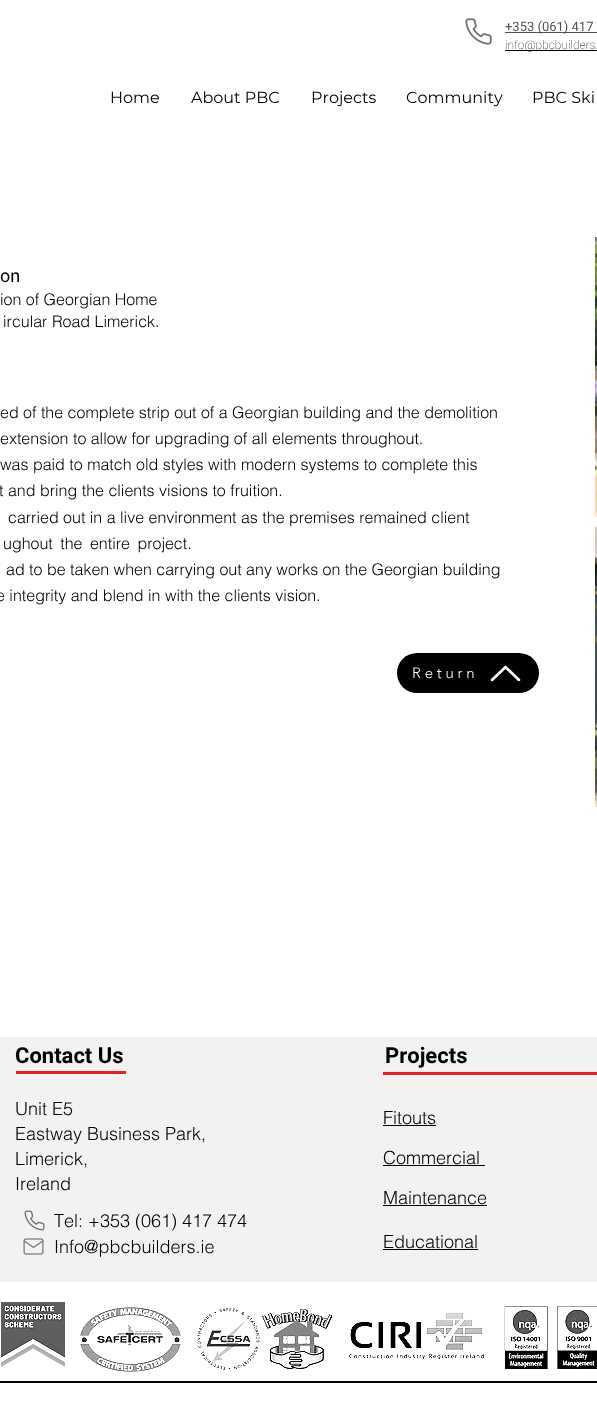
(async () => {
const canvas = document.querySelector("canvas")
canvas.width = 597
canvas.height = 1402
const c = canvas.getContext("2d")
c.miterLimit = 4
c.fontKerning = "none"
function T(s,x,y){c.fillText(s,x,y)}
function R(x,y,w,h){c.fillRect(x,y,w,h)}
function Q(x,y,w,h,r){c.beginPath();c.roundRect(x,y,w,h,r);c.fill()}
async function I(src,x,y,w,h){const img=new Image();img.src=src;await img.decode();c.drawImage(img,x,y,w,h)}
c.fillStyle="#fff"
R(0,0,597,1402)
await I("1.png",465,18,27,27)
c.fillStyle="#525252"
R(505,32,92,1)
c.font="13px Roboto"
T("+353 (061) 417",505,31)
c.fillStyle="#000"
R(505,50,92,1)
c.font="100 12px Roboto"
T("info@pbcbuilders.",505,49)
c.font="16px Montserrat"
T("Home",110,103)
T("About PBC",191,103)
T("Projects",311,103)
T("Community",406,103)
T("PBC Ski",532,103)
c.font="18px Roboto"
T("on",0,282)
await I("2.png",595,237,2,280)
await I("3.png",595,527,2,280)
c.font="300 16px helvetica"
T("ion of Georgian Home",0,305)
T("ircular Road Limerick.",3,327)
T("ed of the complete strip out of a Georgian building and the demolition",0,418)
T("extension to allow for upgrading of all elements throughout.",0,444)
T("was paid to match old styles with modern systems to complete this",0,470)
T("t and bring the clients visions to fruition.",-1,496)
T("carried out in a live environment as the premises remained client",8,523)
c.wordSpacing="3px"
T("ughout the entire project.",3,549)
c.wordSpacing="0px"
T("ad to be taken when carrying out any works on the Georgian building",6,575)
T("e integrity and blend in with the clients vision.",-4,601)
Q(397,653,142,40,20)
c.letterSpacing="3.75px"
c.font="300 15px 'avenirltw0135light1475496'"
c.fillStyle="#fff"
T("Return",412,678)
await I("4.png",490,665,31,17)
c.fillStyle="#f2f2f2"
R(0,1037,597,245)
c.letterSpacing="0px"
c.font="bold 22px Roboto"
c.fillStyle="#000"
T("Contact Us",15,1063)
T("Projects",385,1063)
c.fillStyle="#ec1c24"
R(16,1071,110,3)
R(383,1072,214,3)
c.font="300 18px helvetica"
c.fillStyle="#000"
T("Unit E5",15,1115)
T("Eastway Business Park,",15,1140)
T("Limerick,",15,1165)
T("Ireland",15,1190)
T("Fitouts",383,1124)
R(383,1125,53,1)
T("Commercial",383,1164)
R(383,1165,102,1)
T("Maintenance",383,1204)
R(383,1205,104,1)
await I("5.png",24,1210,21,21)
T("Tel: +353 (061) 417 474",54,1227)
T("Info@pbcbuilders.ie",54,1253)
T("Educational",383,1248)
R(383,1249,95,1)
await I("6.png",23,1238,21,17)
await I("7.png",1,1302,64,65)
await I("8.png",80,1307,101,65)
await I("9.png",197,1308,63,62)
await I("10.png",262,1308,71,61)
await I("11.png",349,1312,135,48)
await I("12.png",504,1306,44,63)
await I("13.png",557,1306,40,63)
R(0,1381,597,2)
})()
